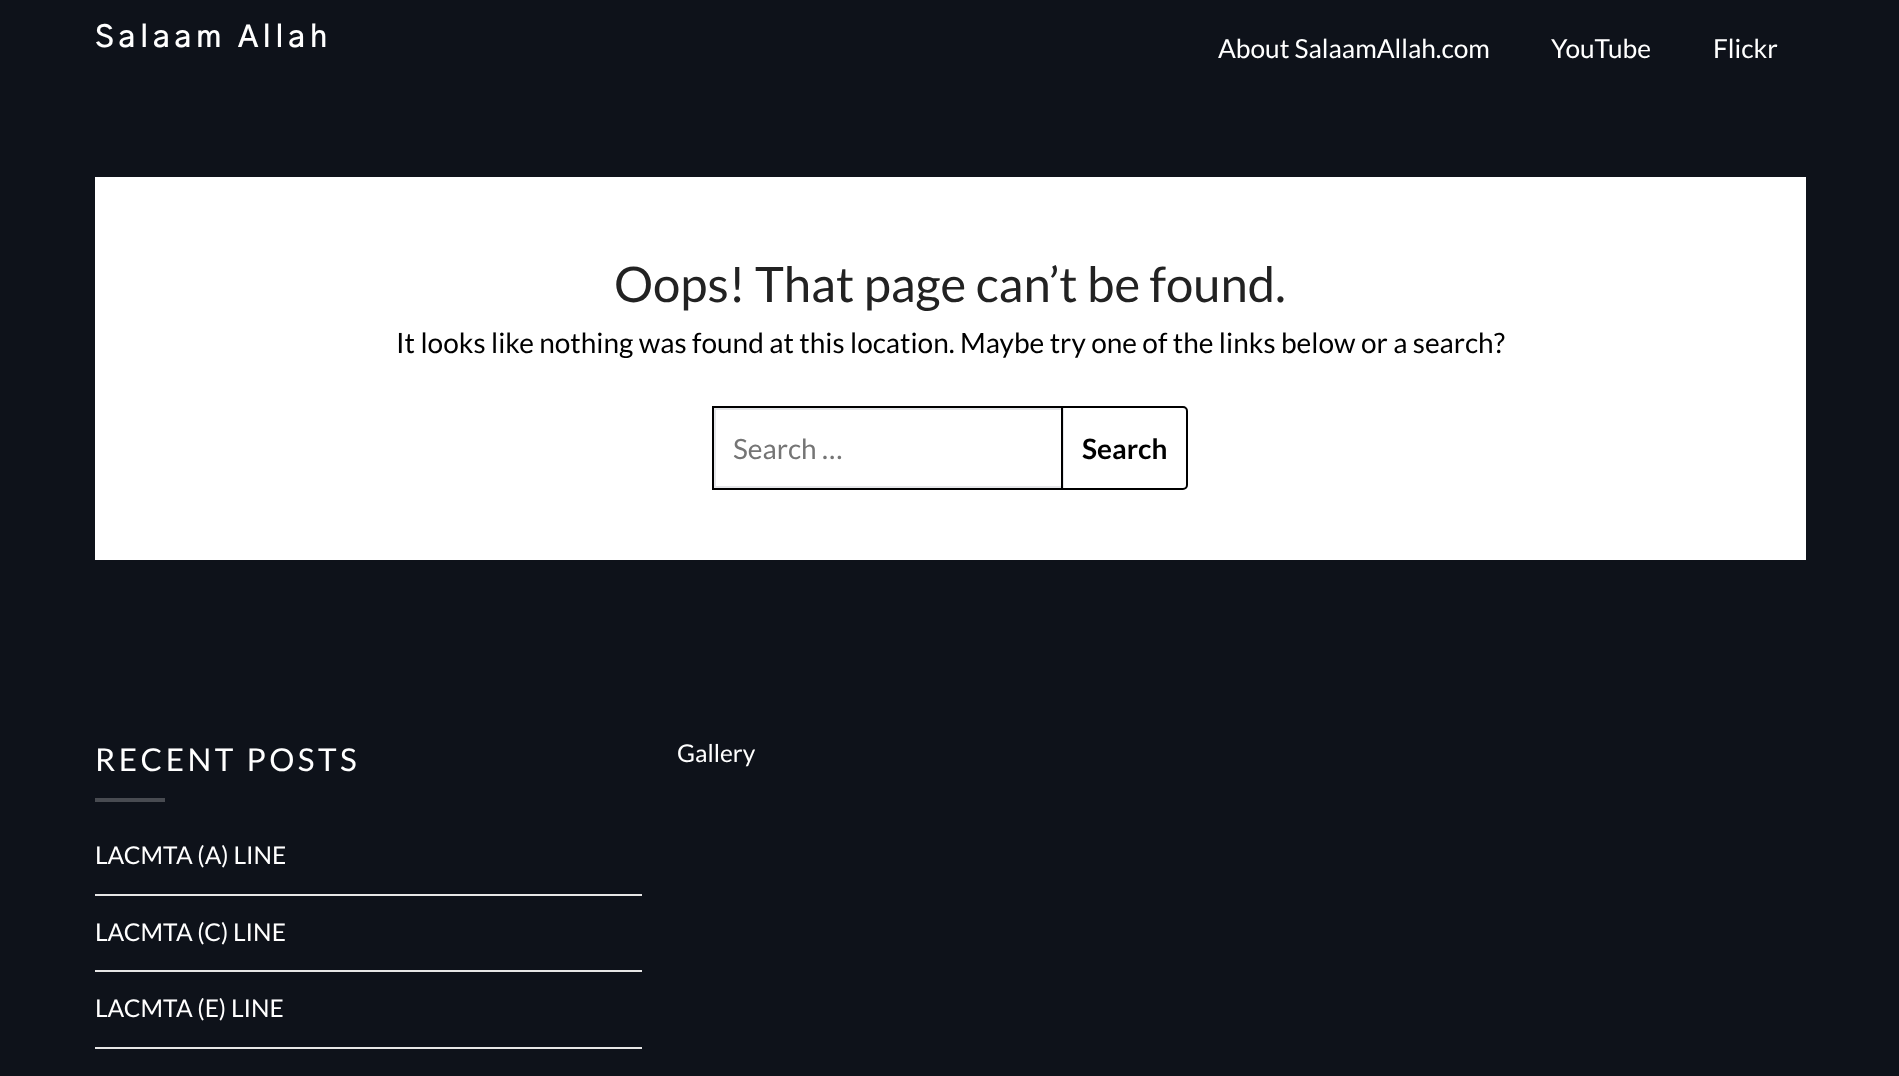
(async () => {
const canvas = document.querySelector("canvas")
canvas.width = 1899
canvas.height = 1076
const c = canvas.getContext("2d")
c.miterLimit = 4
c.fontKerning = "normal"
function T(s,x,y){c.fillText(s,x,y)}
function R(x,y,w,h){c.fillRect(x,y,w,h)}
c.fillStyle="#0e121a"
R(0,0,1899,1076)
c.letterSpacing="5.25px"
c.font="bold 29.75px 'Gothic A1'"
c.fillStyle="#fff"
T("Salaam Allah",95,47)
c.letterSpacing="0px"
c.font="26.25px Lato"
T("About SalaamAllah.com",1218,58)
T("YouTube",1551,58)
T("Flickr",1713,58)
R(95,177,1711,383)
c.font="49px Lato"
c.fillStyle="#222"
T("Oops! That page can’t be found.",614,302)
c.font="28px Lato"
c.fillStyle="#000"
T("It looks like nothing was found at this location. Maybe try one of the links below or a search?",396,353)
R(712,406,352,2)
R(712,488,352,2)
R(712,406,2,84)
c.strokeStyle="#e5e6e9"
c.lineWidth=2
c.strokeRect(715,409,348,78)
c.fillStyle="#757575"
T("Search …",733,459)
c.beginPath()
c.roundRect(1062,407,125,82,[0,4,4,0])
c.strokeStyle="#000"
c.stroke()
c.font="bold 28px Lato"
c.fillStyle="#000"
T("Search",1082,459)
c.letterSpacing="3.5px"
c.font="31.5px Lato"
c.fillStyle="#fff"
T("RECENT POSTS",95,771)
c.fillStyle="#484b51"
R(95,798,70,4)
c.fillStyle="#e6e6e6"
R(95,894,547,2)
c.letterSpacing="0px"
c.font="24.5px Lato"
c.fillStyle="#fff"
T("LACMTA (A) LINE",95,864)
c.fillStyle="#e6e6e6"
R(95,970,547,2)
c.fillStyle="#fff"
T("LACMTA (C) LINE",95,941)
c.fillStyle="#e6e6e6"
R(95,1047,547,2)
c.fillStyle="#fff"
T("LACMTA (E) LINE",95,1017)
T("Gallery",677,762)
})()
